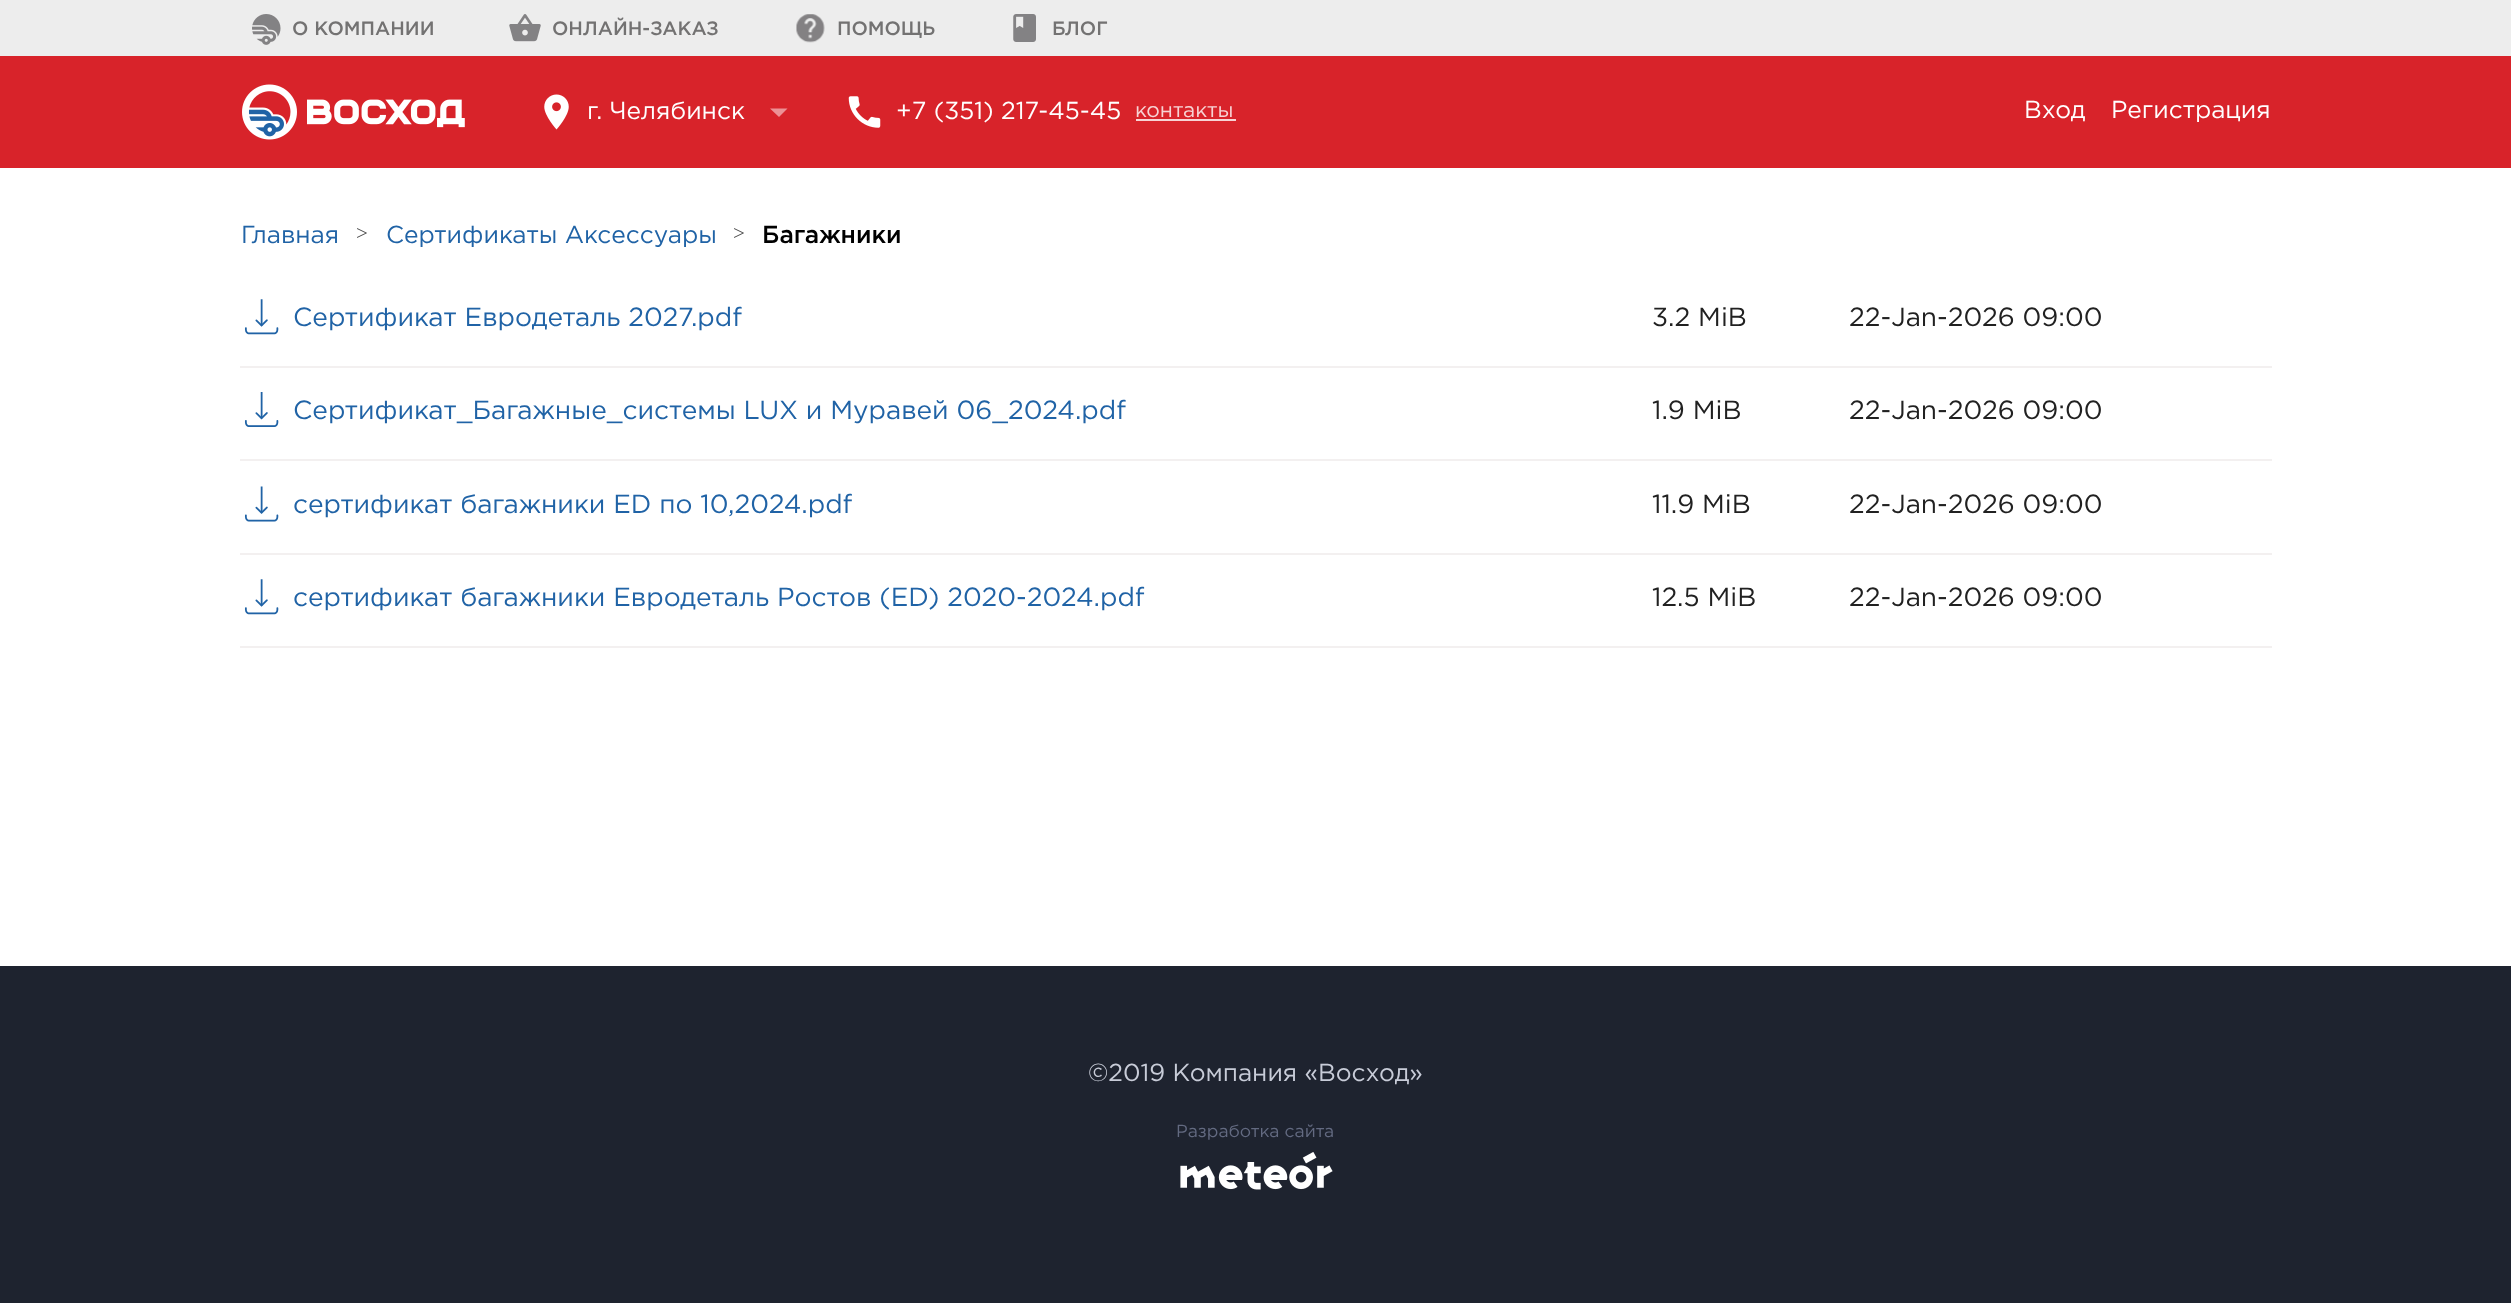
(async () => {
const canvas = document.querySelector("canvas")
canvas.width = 2511
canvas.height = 1303
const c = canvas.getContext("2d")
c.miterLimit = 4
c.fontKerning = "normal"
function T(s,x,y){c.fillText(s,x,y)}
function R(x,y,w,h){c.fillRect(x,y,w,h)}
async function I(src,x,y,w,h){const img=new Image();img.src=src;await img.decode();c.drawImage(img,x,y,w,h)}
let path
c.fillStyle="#fff"
R(0,0,2511,1303)
c.fillStyle="#ededed"
R(0,0,2511,56)
await I("1.png",252,14,29,31)
c.font="500 19.25px Gotham"
c.fillStyle="#737272"
T("О КОМПАНИИ",292,35)
await I("2.png",509,14,32,28)
T("ОНЛАЙН-ЗАКАЗ",552,35)
await I("3.png",796,14,29,29)
T("ПОМОЩЬ",837,35)
await I("4.png",1013,14,23,28)
T("БЛОГ",1052,35)
c.fillStyle="#d8232a"
R(0,56,2511,112)
await I("5.png",242,84,223,56)
await I("6.png",544,94,25,36)
c.font="24.5px Gotham"
c.fillStyle="#fff"
T("г. Челябинск",587,119)
c.fillStyle="#ec9195"
path = new Path2D("M770 108.5l9 8.5l8.5-8.5z")
c.fill(path,"evenodd")
await I("7.png",848,96,33,32)
c.fillStyle="#fff"
T("+7 (351) 217-45-45",896,119)
c.font="21px Gotham"
c.fillStyle="#f7d3d4"
T("контакты",1135,117)
R(1136,119,100,2)
c.font="24.5px Gotham"
c.fillStyle="#fff"
T("Вход",2024,118)
T("Регистрация",2111,118)
c.fillStyle="#2063a6"
T("Главная",241,243)
c.font="21px Liberation Serif"
c.fillStyle="#4d4d4d"
T(">",356,240)
c.font="24.5px Gotham"
c.fillStyle="#2063a6"
T("Сертификаты Аксессуары",386,243)
c.font="21px Liberation Serif"
c.fillStyle="#4d4d4d"
T(">",733,240)
c.font="500 24.5px Gotham"
c.fillStyle="#000"
T("Багажники",762,243)
c.fillStyle="#f3f0f0"
R(240,366,2032,2)
await I("8.png",244,299,35,36)
c.font="26.25px Gotham"
c.fillStyle="#2063a6"
T("Сертификат Евродеталь 2027.pdf",293,326)
c.fillStyle="#212121"
T("3.2 MiB",1652,326)
T("22-Jan-2026 09:00",1849,326)
c.fillStyle="#f3f0f0"
R(240,459,2032,2)
await I("9.png",244,392,35,35)
c.fillStyle="#2063a6"
T("Сертификат_Багажные_системы LUX и Муравей 06_2024.pdf",293,419)
c.fillStyle="#212121"
T("1.9 MiB",1652,419)
T("22-Jan-2026 09:00",1849,419)
c.fillStyle="#f3f0f0"
R(240,553,2032,2)
await I("10.png",244,486,35,36)
c.fillStyle="#2063a6"
T("сертификат багажники ED по 10,2024.pdf",293,513)
c.fillStyle="#212121"
T("11.9 MiB",1652,513)
T("22-Jan-2026 09:00",1849,513)
c.fillStyle="#f3f0f0"
R(240,646,2032,2)
await I("8.png",244,579,35,36)
c.fillStyle="#2063a6"
T("сертификат багажники Евродеталь Ростов (ED) 2020-2024.pdf",293,606)
c.fillStyle="#212121"
T("12.5 MiB",1652,606)
T("22-Jan-2026 09:00",1849,606)
c.fillStyle="#1e232f"
R(0,966,2511,337)
c.font="24.5px Gotham"
c.fillStyle="#c8ccd8"
T("©2019 Компания «Восход»",1088,1081)
c.font="17.5px Gotham"
c.fillStyle="#636a81"
T("Разработка сайта",1176,1137)
await I("11.png",1180,1152,153,38)
})()
